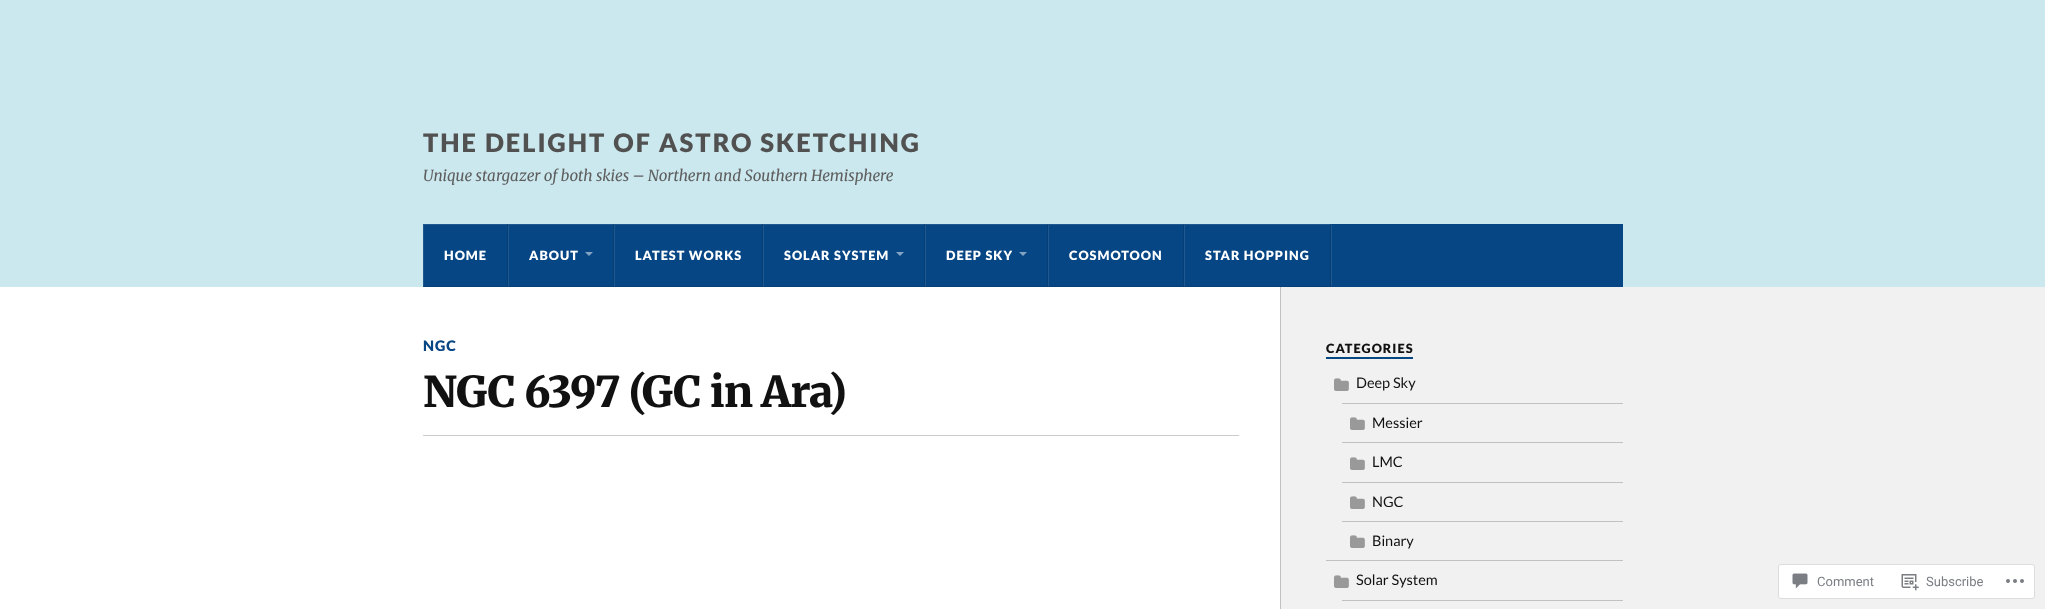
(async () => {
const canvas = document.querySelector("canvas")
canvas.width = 2045
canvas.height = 609
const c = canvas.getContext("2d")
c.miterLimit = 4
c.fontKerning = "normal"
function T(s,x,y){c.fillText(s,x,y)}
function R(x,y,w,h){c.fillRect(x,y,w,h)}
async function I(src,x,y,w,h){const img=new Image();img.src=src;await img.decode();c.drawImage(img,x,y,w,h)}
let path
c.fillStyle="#f1f1f1"
R(0,0,2045,609)
c.fillStyle="#cbe8ee"
R(0,0,2045,287)
c.letterSpacing="2px"
c.font="900 25.5px Lato"
c.fillStyle="#515151"
T("THE DELIGHT OF ASTRO SKETCHING",423,152)
c.letterSpacing="0px"
c.font="italic 300 15.3px Merriweather"
c.fillStyle="#5e5e5e"
T("Unique stargazer of both skies – Northern and Southern Hemisphere",423,181)
c.fillStyle="#074684"
R(423,224,1200,63)
c.fillStyle="#205990"
path = new Path2D("M423 224h85l-1 1h-83z")
c.fill(path)
c.fillStyle="#0000001a"
path = new Path2D("M508 224v63l-1-1v-61z")
c.fill(path)
path = new Path2D("M508 287h-85l1-1h83z")
c.fill(path)
c.fillStyle="#ffffff1a"
path = new Path2D("M423 287v-63l1 1v61z")
c.fill(path)
c.letterSpacing="1px"
c.font="900 12.75px Lato"
c.fillStyle="#fff"
T("HOME",444,260)
c.fillStyle="#205990"
path = new Path2D("M508 224h106l-1 1h-104z")
c.fill(path)
c.fillStyle="#0000001a"
path = new Path2D("M614 224v63l-1-1v-61z")
c.fill(path)
path = new Path2D("M614 287h-106l1-1h104z")
c.fill(path)
c.fillStyle="#ffffff1a"
path = new Path2D("M508 287v-63l1 1v61z")
c.fill(path)
c.fillStyle="#fff"
T("ABOUT",529,260)
c.fillStyle="#83a3c2"
path = new Path2D("M585 252h8l-4 4z")
c.fill(path)
c.fillStyle="#205990"
path = new Path2D("M614 224h149l-1 1h-147z")
c.fill(path)
c.fillStyle="#0000001a"
path = new Path2D("M763 224v63l-1-1v-61z")
c.fill(path)
path = new Path2D("M763 287h-149l1-1h147z")
c.fill(path)
c.fillStyle="#ffffff1a"
path = new Path2D("M614 287v-63l1 1v61z")
c.fill(path)
c.fillStyle="#fff"
T("LATEST WORKS",635,260)
c.fillStyle="#205990"
path = new Path2D("M763 224h162l-1 1h-160z")
c.fill(path)
c.fillStyle="#0000001a"
path = new Path2D("M925 224v63l-1-1v-61z")
c.fill(path)
path = new Path2D("M925 287h-162l1-1h160z")
c.fill(path)
c.fillStyle="#ffffff1a"
path = new Path2D("M763 287v-63l1 1v61z")
c.fill(path)
c.fillStyle="#fff"
T("SOLAR SYSTEM",784,260)
c.fillStyle="#83a3c2"
path = new Path2D("M896 252h8l-4 4z")
c.fill(path)
c.fillStyle="#205990"
path = new Path2D("M925 224h123l-1 1h-121z")
c.fill(path)
c.fillStyle="#0000001a"
path = new Path2D("M1048 224v63l-1-1v-61z")
c.fill(path)
path = new Path2D("M1048 287h-123l1-1h121z")
c.fill(path)
c.fillStyle="#ffffff1a"
path = new Path2D("M925 287v-63l1 1v61z")
c.fill(path)
c.fillStyle="#fff"
T("DEEP SKY",946,260)
c.fillStyle="#83a3c2"
path = new Path2D("M1019 252h8l-4 4z")
c.fill(path)
c.fillStyle="#205990"
path = new Path2D("M1048 224h136l-1 1h-134z")
c.fill(path)
c.fillStyle="#0000001a"
path = new Path2D("M1184 224v63l-1-1v-61z")
c.fill(path)
path = new Path2D("M1184 287h-136l1-1h134z")
c.fill(path)
c.fillStyle="#ffffff1a"
path = new Path2D("M1048 287v-63l1 1v61z")
c.fill(path)
c.fillStyle="#fff"
T("COSMOTOON",1069,260)
c.fillStyle="#205990"
path = new Path2D("M1184 224h147l-1 1h-145z")
c.fill(path)
c.fillStyle="#0000001a"
path = new Path2D("M1331 224v63l-1-1v-61z")
c.fill(path)
path = new Path2D("M1331 287h-147l1-1h145z")
c.fill(path)
c.fillStyle="#ffffff1a"
path = new Path2D("M1184 287v-63l1 1v61z")
c.fill(path)
c.fillStyle="#fff"
T("STAR HOPPING",1205,260)
c.fillStyle="#205990"
R(1331,225,1,61)
c.fillStyle="#fff"
R(0,287,1280,322)
c.font="900 14.5px Lato"
c.fillStyle="#074684"
T("NGC",423,351)
c.fillStyle="#ccc"
R(423,435,816,1)
c.letterSpacing="-1px"
c.font="900 42.5px Merriweather"
c.fillStyle="#111"
T("NGC 6397 (GC in Ara)",423,407)
c.fillStyle="#c1c1c1"
R(1280,287,1,322)
c.fillStyle="#074684"
R(1326,357,87,2)
c.letterSpacing="1px"
c.font="900 12.75px Lato"
c.fillStyle="#111"
T("CATEGORIES",1326,353)
c.fillStyle="#c1c1c1"
R(1326,560,297,1)
await I("1.png",1334,378,15,13)
c.letterSpacing="0px"
c.font="14.5px Lato"
c.fillStyle="#111"
T("Deep Sky",1356,388)
c.fillStyle="#c1c1c1"
R(1342,403,281,1)
R(1342,442,281,1)
await I("1.png",1350,417,15,13)
c.fillStyle="#111"
T("Messier",1372,428)
c.fillStyle="#c1c1c1"
R(1342,482,281,1)
await I("1.png",1350,457,15,13)
c.fillStyle="#111"
T("LMC",1372,467)
c.fillStyle="#c1c1c1"
R(1342,521,281,1)
await I("1.png",1350,496,15,13)
c.fillStyle="#111"
T("NGC",1372,507)
await I("1.png",1350,535,15,13)
T("Binary",1372,546)
await I("1.png",1334,575,15,13)
T("Solar System",1356,585)
c.fillStyle="#c1c1c1"
R(1342,600,281,1)
c.fillStyle="#fff"
c.beginPath()
c.roundRect(1778.5,564.5,256,34,2.5)
c.fill()
c.strokeStyle="#dcdcde"
c.stroke()
await I("2.png",1792,573,16,16)
c.font="13px Roboto"
c.fillStyle="#7a7e84"
T("Comment",1817,586)
await I("3.png",1901,574,18,17)
T("Subscribe",1926,586)
await I("4.png",2006,579,18,4)
})()
